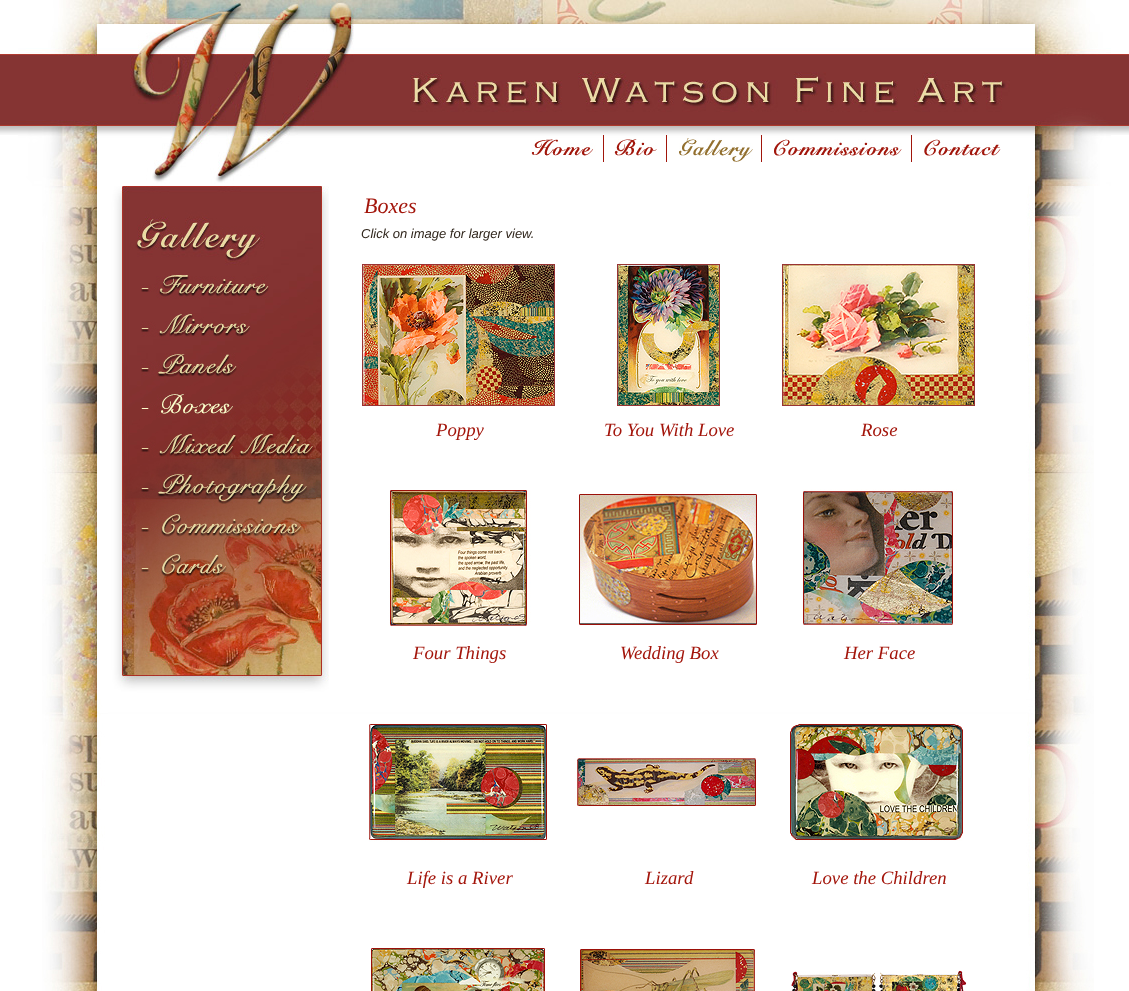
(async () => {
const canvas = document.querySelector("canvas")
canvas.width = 1129
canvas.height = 991
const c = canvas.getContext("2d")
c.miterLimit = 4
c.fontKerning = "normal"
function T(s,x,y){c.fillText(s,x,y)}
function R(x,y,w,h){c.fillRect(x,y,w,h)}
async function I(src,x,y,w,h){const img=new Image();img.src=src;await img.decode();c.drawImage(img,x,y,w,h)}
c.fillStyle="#fff"
R(0,0,1129,991)
await I("1.png",0,54,1129,81)
await I("2.png",18,0,1093,186)
await I("3.png",531,139,65,19)
c.fillStyle="#a1160b"
R(603,135,1,27)
await I("4.png",614,139,43,17)
R(666,135,1,27)
await I("5.png",679,138,74,24)
R(761,135,1,27)
await I("6.png",774,139,128,19)
R(911,135,1,27)
await I("7.png",921,139,80,20)
await I("8.png",42,186,1052,805)
await I("9.png",97,186,232,513)
await I("10.png",141,273,128,26)
await I("11.png",141,314,110,23)
await I("12.png",141,353,175,33)
await I("13.png",126,386,190,39)
await I("14.png",140,425,176,38)
await I("15.png",124,463,192,45)
await I("16.png",124,508,192,36)
await I("17.png",124,544,192,44)
c.font="italic 22px Liberation Serif"
c.fillStyle="#a3150b"
T("Boxes",364,213)
c.font="italic 13px Liberation Sans"
c.fillStyle="#30261c"
T("Click on image for larger view.",361,238)
c.strokeStyle="#933"
c.strokeRect(362.5,264.5,192,141)
await I("18.png",363,265,191,140)
c.font="italic 18.75px Liberation Serif"
c.fillStyle="#a3150b"
T("Poppy",436,436)
c.strokeRect(617.5,264.5,102,141)
await I("19.png",618,265,101,140)
T("To You With Love",604,436)
c.strokeRect(782.5,264.5,192,141)
await I("20.png",783,265,191,140)
T("Rose",861,436)
await I("21.png",388,490,143,136)
T("Four Things",413,659)
await I("22.png",579,491,178,134)
T("Wedding Box",620,659)
await I("23.png",802,489,155,136)
T("Her Face",844,659)
await I("24.png",369,723,178,119)
T("Life is a River",407,884)
await I("25.png",574,756,182,52)
T("Lizard",645,884)
await I("26.png",790,723,173,118)
T("Love the Children",812,884)
await I("27.png",371,948,175,43)
await I("28.png",580,949,175,42)
await I("29.png",791,970,176,21)
})()
